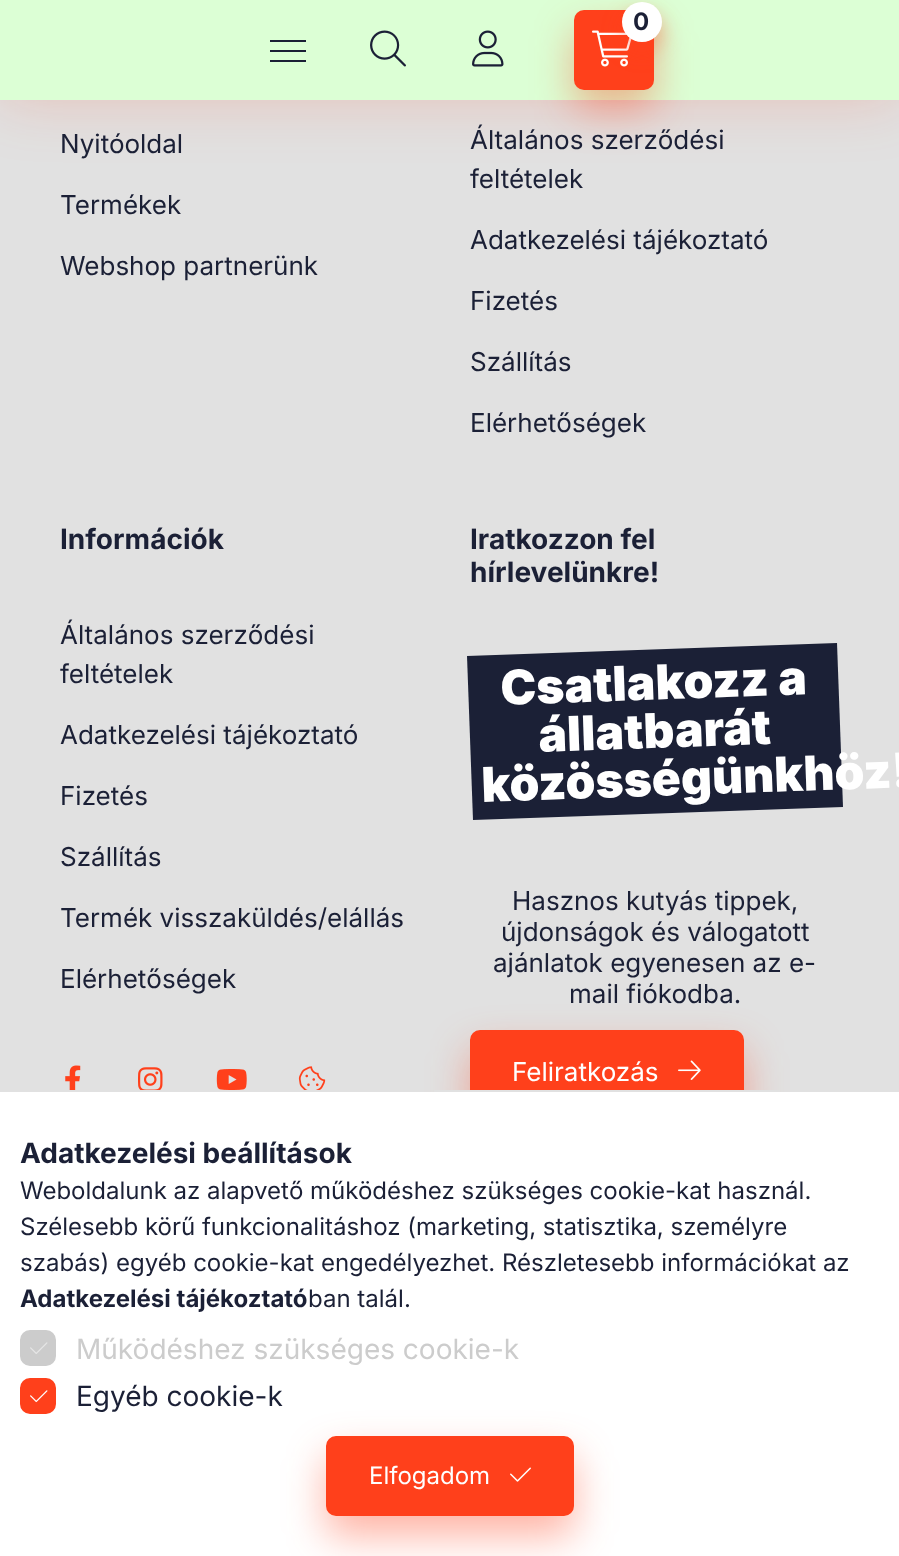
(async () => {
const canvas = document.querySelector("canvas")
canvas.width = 899
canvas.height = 1556
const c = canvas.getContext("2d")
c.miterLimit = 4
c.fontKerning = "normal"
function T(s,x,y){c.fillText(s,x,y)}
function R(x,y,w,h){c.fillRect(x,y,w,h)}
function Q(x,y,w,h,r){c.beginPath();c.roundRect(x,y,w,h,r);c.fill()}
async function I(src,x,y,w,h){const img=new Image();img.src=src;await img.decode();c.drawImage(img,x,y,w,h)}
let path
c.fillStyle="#e1e1e1"
R(0,0,899,1556)
c.fillStyle="#ff401b33"
c.filter="blur(30px)"
c.beginPath()
c.rect(0,0,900,100)
c.fill()
c.filter="none"
c.fillStyle="#dcffd5"
R(0,0,899,100)
c.fillStyle="#ff401b66"
c.filter="blur(20px)"
c.beginPath()
c.roundRect(574,30,80,80,10)
c.fill()
c.filter="none"
c.fillStyle="#ff401b"
Q(574,10,80,80,10)
await I("1.png",592,30,40,37)
c.fillStyle="#ff401b66"
c.filter="blur(10px)"
c.beginPath()
c.roundRect(622,12,40,40,20)
c.fill()
c.filter="none"
c.fillStyle="#fff"
c.beginPath()
c.arc(642,22,20,0,7)
c.fill()
c.font="bold 24px Inter"
c.fillStyle="#1b2036"
T("0",633,30)
R(270,40,36,2)
R(270,50,36,2)
R(270,60,36,2)
await I("2.png",370,30,36,37)
await I("3.png",472,30,32,37)
c.font="26px Inter"
T("Nyitóoldal",60,153)
T("Termékek",60,214)
T("Webshop partnerünk",60,275)
T("Általános szerződési",470,149)
T("feltételek",470,188)
T("Adatkezelési tájékoztató",470,249)
T("Fizetés",470,310)
T("Szállítás",470,371)
T("Elérhetőségek",470,432)
c.font="bold 28px Inter"
T("Információk",60,549)
c.font="26px Inter"
T("Általános szerződési",60,644)
T("feltételek",60,683)
T("Adatkezelési tájékoztató",60,744)
T("Fizetés",60,805)
T("Szállítás",60,866)
T("Termék visszaküldés/elállás",60,927)
T("Elérhetőségek",60,988)
await I("4.png",65,1065,16,25)
await I("5.png",138,1067,25,23)
await I("6.png",216,1069,31,21)
await I("7.png",298,1066,28,24)
c.font="bold 28px Inter"
T("Iratkozzon fel",470,549)
T("hírlevelünkre!",470,582)
path = new Path2D("M467 656l370-13l6 164l-370 13z")
c.fill(path)
c.font="900 48px Inter"
c.fillStyle="#fff"
c.save()
c.translate(501,705)
c.rotate(-2 * Math.PI / 180)
c.fillText("Csatlakozz a",0,0)
c.restore()
c.save()
c.translate(539,752)
c.rotate(-2 * Math.PI / 180)
c.fillText("állatbarát",0,0)
c.restore()
c.save()
c.translate(482,802)
c.rotate(-2 * Math.PI / 180)
c.fillText("közösségünkhöz!",0,0)
c.restore()
c.font="26px Inter"
c.fillStyle="#1b2036"
T("Hasznos kutyás tippek,",512,910)
T("újdonságok és válogatott",501,941)
T("ajánlatok egyenesen az e-",493,972)
T("mail fiókodba.",569,1003)
c.fillStyle="#ff401b66"
c.filter="blur(20px)"
c.beginPath()
c.roundRect(470,1050,274,84,10)
c.fill()
c.filter="none"
c.fillStyle="#ff401b"
c.beginPath()
c.roundRect(471,1031,272,82,9)
c.fill()
c.strokeStyle="#ff401b"
c.lineWidth=2
c.stroke()
c.fillStyle="#fff"
T("Feliratkozás",512,1081)
await I("8.png",678,1060,23,20)
R(0,1092,899,464)
c.fillStyle="#e1e1e1"
R(434,1090,346,2)
c.font="bold 28px Inter"
c.fillStyle="#1b2036"
T("Adatkezelési beállítások",20,1163)
c.font="24px Inter"
T("Weboldalunk az alapvető működéshez szükséges cookie-kat használ.",20,1199)
T("Szélesebb körű funkcionalitáshoz (marketing, statisztika, személyre",20,1235)
T("szabás) egyéb cookie-kat engedélyezhet. Részletesebb információkat az",20,1271)
c.font="bold 24px Inter"
T("Adatkezelési tájékoztató",20,1307)
c.font="24px Inter"
T("ban talál.",308,1307)
c.fillStyle="#ccc"
c.beginPath()
c.roundRect(21,1331,34,34,9)
c.fill()
c.strokeStyle="#ccc"
c.stroke()
await I("9.png",30,1342,18,12)
c.font="28px Inter"
T("Működéshez szükséges cookie-k",76,1359)
c.fillStyle="#ff401b"
c.beginPath()
c.roundRect(21,1379,34,34,9)
c.fill()
c.strokeStyle="#ff401b"
c.stroke()
await I("10.png",30,1390,18,13)
c.fillStyle="#ff401b66"
c.filter="blur(20px)"
c.beginPath()
c.roundRect(326,1456,248,80,10)
c.fill()
c.filter="none"
c.fillStyle="#1b2036"
T("Egyéb cookie-k",76,1406)
c.fillStyle="#ff401b"
c.beginPath()
c.roundRect(327,1437,246,78,9)
c.fill()
c.stroke()
c.font="24px Inter"
c.fillStyle="#fff"
T("Elfogadom",369,1484)
await I("11.png",510,1467,21,15)
})()
